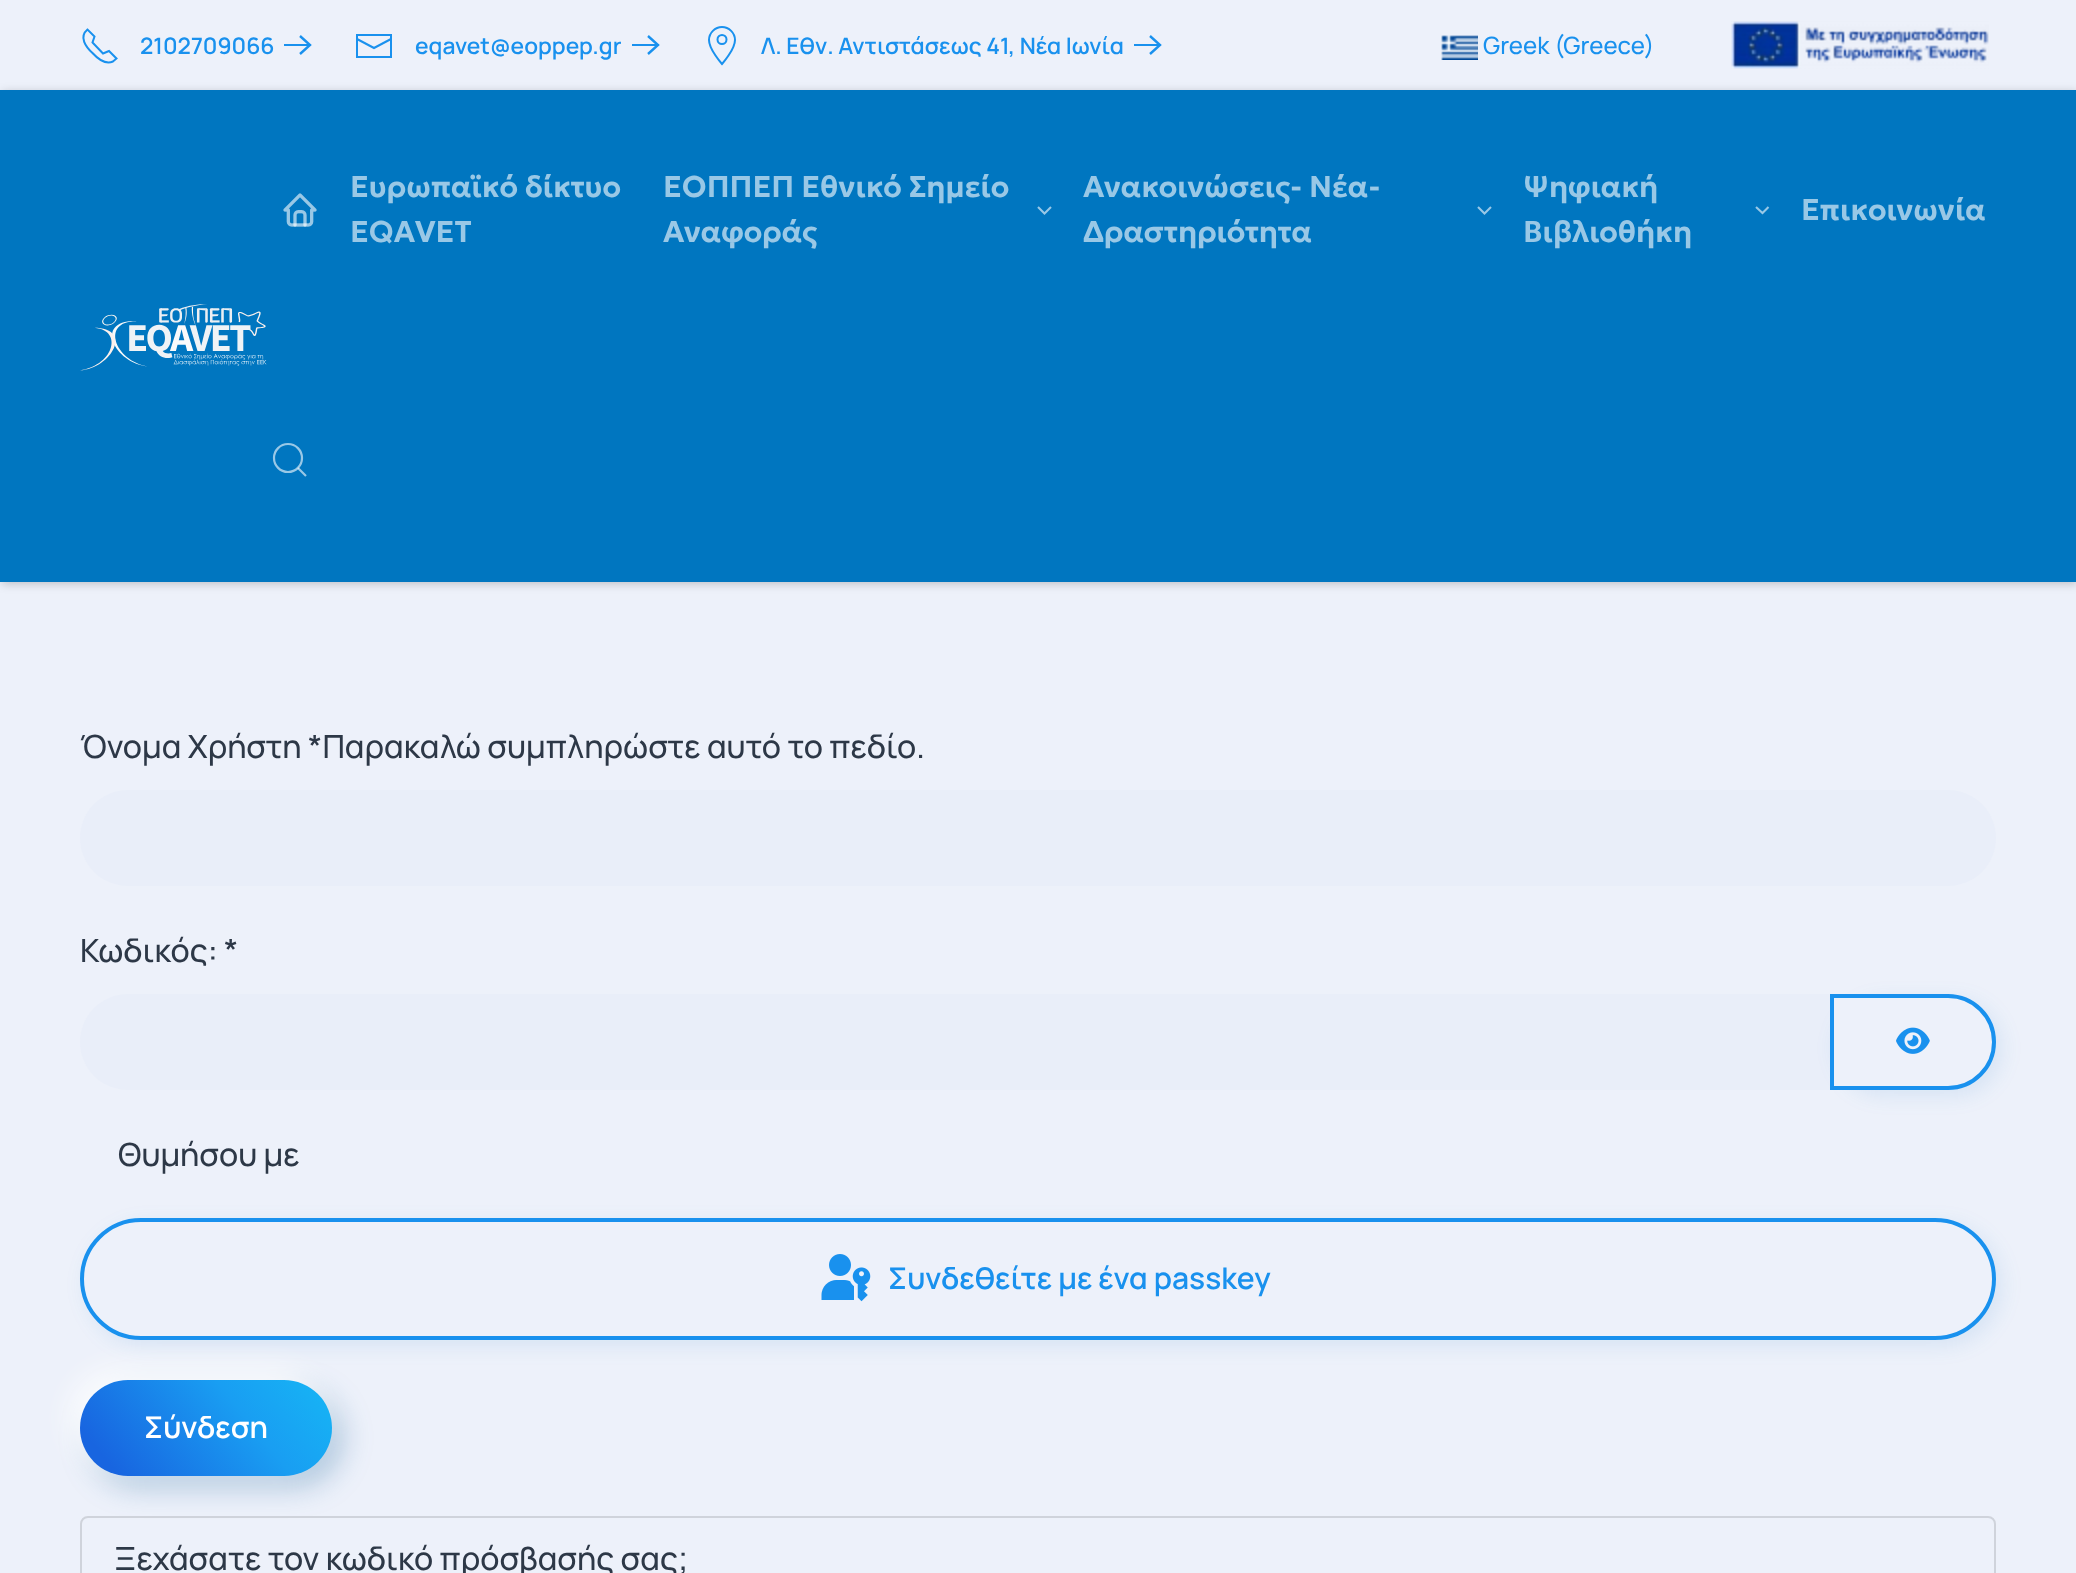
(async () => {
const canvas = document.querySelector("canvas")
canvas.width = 2076
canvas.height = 1573
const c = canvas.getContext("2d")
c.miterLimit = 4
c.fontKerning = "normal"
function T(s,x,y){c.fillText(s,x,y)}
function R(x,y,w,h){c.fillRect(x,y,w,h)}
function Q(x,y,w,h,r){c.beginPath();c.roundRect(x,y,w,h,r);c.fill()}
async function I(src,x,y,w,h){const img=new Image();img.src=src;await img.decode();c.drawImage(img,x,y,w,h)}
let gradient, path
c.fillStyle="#edf1fa"
R(0,0,2076,1573)
path = new Path2D("M92.5 53c5 5.5 12.5 12 20.5 8.5l3.5-3l-7.5-7.5l-6 2.5l-10.5-11l2-6l-7-7c-9 7.5-1.5 17.5 5 23.5")
c.strokeStyle="#1991ee"
c.lineWidth=2
c.stroke(path)
c.font="200 22.75px 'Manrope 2'"
c.fillStyle="#1991ee"
T("2102709066",140,54)
path = new Path2D("M300 36l10 9l-10 9")
c.lineWidth=2.4
c.stroke(path)
R(284,44,27,2)
path = new Path2D("M357 39l17 9l17-9")
c.lineWidth=2
c.stroke(path)
path = new Path2D("M356 34v24h36v-24zm34 22h-32v-20h32z")
c.fill(path)
T("eqavet@eoppep.gr",415,54)
path = new Path2D("M648 36l10 9l-10 9")
c.lineWidth=2.4
c.stroke(path)
R(632,44,27,2)
path = new Path2D("M722 27c-7 0-13 6-13 13c0 9.5 13 24 13 24c0 0 13-14.5 13-24c0-7-6-13-13-13z")
c.lineWidth=2
c.stroke(path)
c.beginPath()
c.arc(722,39.5,4.5,0,7)
c.stroke()
T("Λ. Εθν. Αντιστάσεως 41, Νέα Ιωνία",761,54)
path = new Path2D("M1150 36l10 9l-10 9")
c.lineWidth=2.4
c.stroke(path)
R(1134,44,27,2)
await I("1.png",1441,35,37,25)
c.font="200 24px Manrope"
T("Greek (Greece)",1483,54)
await I("2.png",1731,21,258,48)
c.fillStyle="#00000033"
c.filter="blur(5px)"
c.beginPath()
c.rect(2,92,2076,492)
c.fill()
c.filter="none"
c.fillStyle="#0076c0"
R(0,90,2076,492)
await I("3.png",283,193,34,34)
c.font="100 30px Geologica"
c.fillStyle="#99c8e6"
T("Ευρωπαϊκό δίκτυο",350,197)
T("EQAVET",350,242)
T("ΕΟΠΠΕΠ Εθνικό Σημείο",663,197)
path = new Path2D("M1038 207l6.5 6.5l6.5-6.5")
c.strokeStyle="#99c8e6"
c.lineWidth=2.1
c.stroke(path)
T("Αναφοράς",663,242)
T("Ανακοινώσεις- Νέα-",1083,197)
path = new Path2D("M1478 207l6.5 6.5l6.5-6.5")
c.stroke(path)
T("Δραστηριότητα",1083,242)
T("Ψηφιακή",1523,197)
path = new Path2D("M1756 207l6.5 6l6-6")
c.stroke(path)
T("Βιβλιοθήκη",1523,242)
T("Επικοινωνία",1801,220)
c.beginPath()
c.arc(288,458,14,0,7)
c.lineWidth=2.2
c.stroke()
path = new Path2D("M298 468l8 8z")
c.strokeStyle="#ffffff99"
c.stroke(path)
await I("4.png",80,304,187,67)
c.font="200 32px Manrope"
c.fillStyle="#2d3847"
T("Όνομα Χρήστη *Παρακαλώ συμπληρώστε αυτό το πεδίο.",80,758)
c.fillStyle="#e9eef9"
Q(80,790,1916,96,48)
c.fillStyle="#2d3847"
T("Κωδικός: *",80,962)
c.fillStyle="#e9eef9"
c.beginPath()
c.roundRect(80,994,1752,96,[48,0,0,48])
c.fill()
c.save()
path = new Path2D("M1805 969h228v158h-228zm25 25h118c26.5 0 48 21.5 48 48c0 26.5-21.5 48-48 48h-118z")
c.clip(path,"evenodd")
c.fillStyle="#0f76c51a"
c.filter="blur(10px)"
c.beginPath()
c.roundRect(1836,1000,166,96,48)
c.fill()
c.filter="none"
c.restore()
c.beginPath()
c.roundRect(1832,996,162,92,[0,46,46,0])
c.strokeStyle="#1991ee"
c.lineWidth=4
c.stroke()
await I("5.png",1896,1027,34,27)
c.fillStyle="#2d3847"
T("Θυμήσου με",118,1166)
c.save()
path = new Path2D("M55 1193h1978v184h-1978zm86 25h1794c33.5 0 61 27.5 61 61c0 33.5-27.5 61-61 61h-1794c-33.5 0-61-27.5-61-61c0-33.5 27.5-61 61-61z")
c.clip(path,"evenodd")
c.fillStyle="#0f76c51a"
c.filter="blur(10px)"
c.beginPath()
c.roundRect(86,1224,1916,122,61)
c.fill()
c.filter="none"
c.restore()
c.beginPath()
c.roundRect(82,1220,1912,118,59)
c.stroke()
await I("6.png",821,1254,50,48)
c.font="200 30px 'Manrope 2'"
c.fillStyle="#1991ee"
T("Συνδεθείτε με ένα passkey",888,1289)
c.fillStyle="#0b59964d"
c.filter="blur(15px)"
c.beginPath()
c.roundRect(90,1390,252,96,48)
c.fill()
c.filter="none"
c.fillStyle="#ffffffe6"
c.filter="blur(15px)"
c.beginPath()
c.roundRect(70,1370,252,96,48)
c.fill()
c.filter="none"
gradient = c.createLinearGradient(-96,1570,256,1286)
gradient.addColorStop(.5,"#1865e0")
gradient.addColorStop(.8,"#199ef2")
gradient.addColorStop(1,"#16b6f5")
c.fillStyle = gradient
Q(80,1380,252,96,48)
c.fillStyle="#fff"
T("Σύνδεση",144,1438)
path = new Path2D("M88 1517h1900c4 0 7 3 7 7v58h-1914v-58c0-4 3-7 7-7z")
c.strokeStyle="#cfd3db"
c.lineWidth=2
c.stroke(path)
c.font="200 32px Manrope"
c.fillStyle="#2d3847"
T("Ξεχάσατε τον κωδικό πρόσβασής σας;",114,1570)
})()
